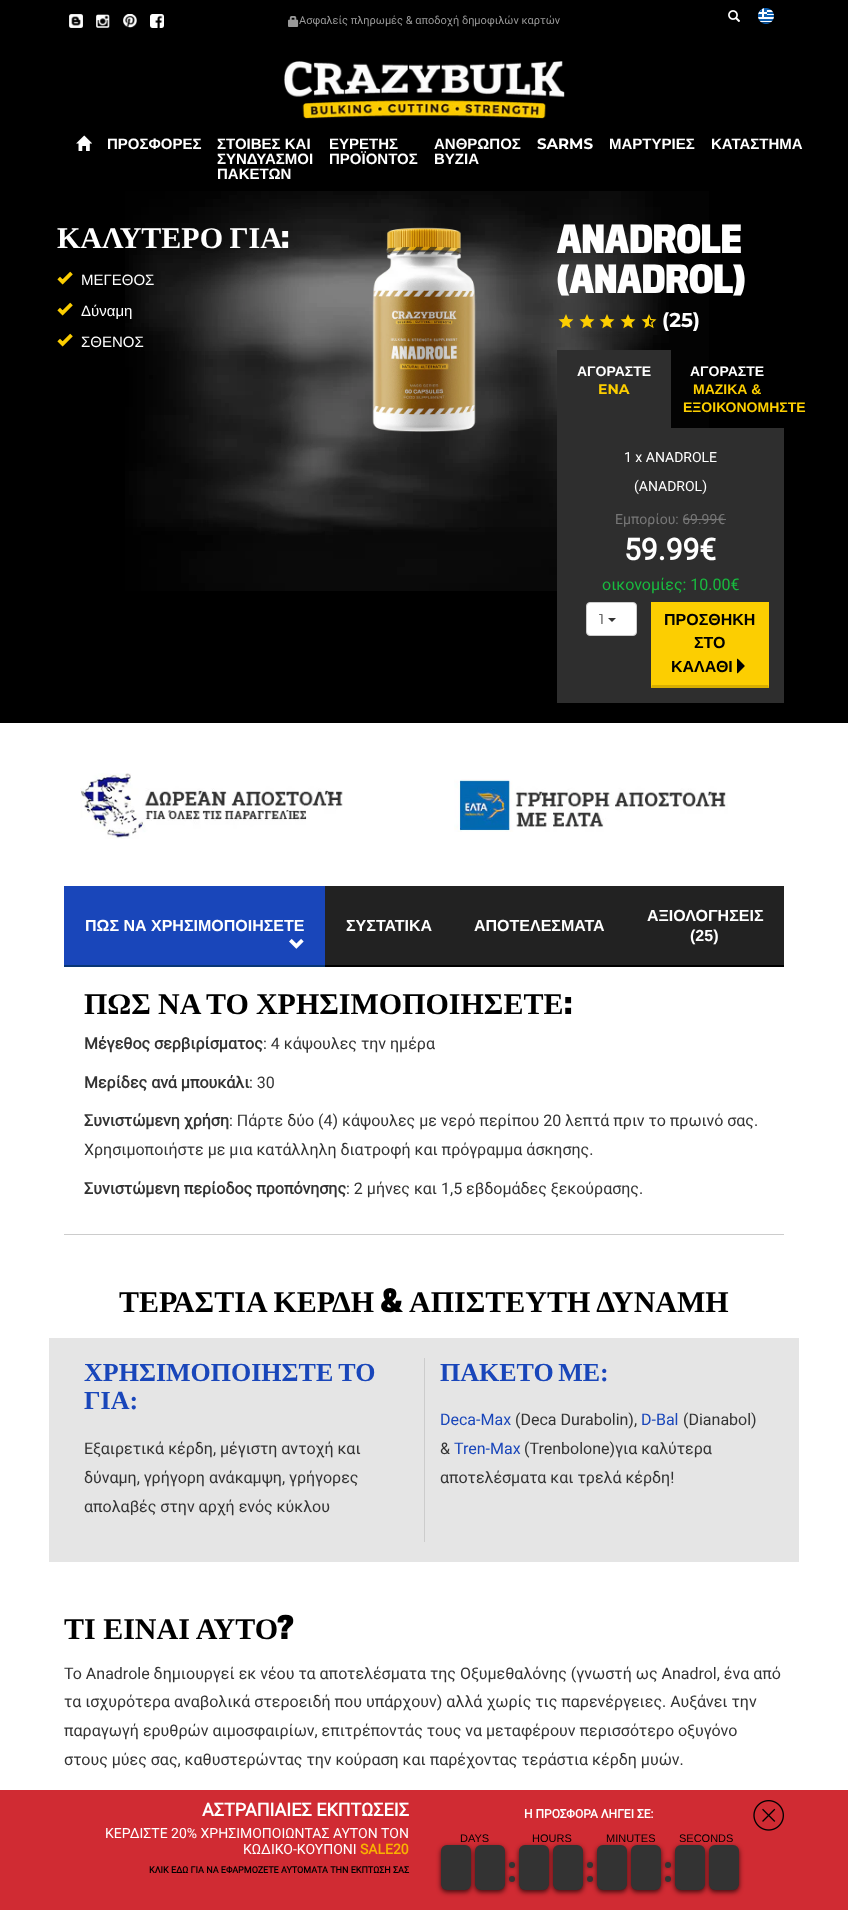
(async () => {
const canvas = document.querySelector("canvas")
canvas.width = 848
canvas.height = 1910
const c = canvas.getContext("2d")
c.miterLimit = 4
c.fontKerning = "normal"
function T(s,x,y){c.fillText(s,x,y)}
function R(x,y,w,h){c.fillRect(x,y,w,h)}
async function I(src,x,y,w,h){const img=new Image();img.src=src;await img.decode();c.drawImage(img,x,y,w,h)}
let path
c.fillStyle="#000"
R(0,0,848,1910)
await I("1.png",69,14,14,14)
await I("2.png",96,14,14,14)
await I("3.png",123,14,14,14)
await I("4.png",150,14,14,14)
await I("5.png",288,16,11,11)
c.font="11px Roboto"
c.fillStyle="#999"
T("Ασφαλείς πληρωμές & αποδοχή δημοφιλών καρτών",299,24)
await I("6.png",728,10,12,12)
await I("7.png",758,8,16,16)
await I("8.png",284,61,281,58)
await I("9.png",76,135,16,16)
c.font="bold 15px Liberation Sans"
c.fillStyle="#fff"
T("ΠΡΟΣΦΟΡΕΣ",107,149)
T("ΣΤΟΙΒΕΣ ΚΑΙ",217,149)
T("ΣΥΝΔΥΑΣΜΟΙ",217,164)
T("ΠΑΚΕΤΩΝ",217,179)
T("ΕΥΡΕΤΗΣ",329,149)
T("ΠΡΟΪΟΝΤΟΣ",329,164)
T("ΑΝΘΡΩΠΟΣ",434,149)
T("ΒΥΖΙΑ",434,164)
c.font="bold 15px Montserrat"
T("SARMS",537,149)
c.font="bold 15px Liberation Sans"
T("ΜΑΡΤΥΡΙΕΣ",609,149)
T("ΚΑΤΑΣΤΗΜΑ",711,149)
await I("10.png",125,191,584,400)
c.wordSpacing="-1px"
c.font="bold 30px Liberation Serif"
T("ΚΑΛΥΤΕΡΟ ΓΙΑ",57,248)
c.wordSpacing="0px"
c.font="bold 30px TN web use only"
T(":",281,248)
await I("11.png",57,271,16,14)
c.font="15px Liberation Sans"
T("ΜΕΓΕΘΟΣ",81,285)
await I("11.png",57,302,16,14)
T("Δύναμη",81,316)
await I("11.png",57,333,16,14)
T("ΣΘΕΝΟΣ",81,347)
await I("12.png",372,227,104,205)
c.font="bold 36px TN web use only"
T("ANADROLE",557,253)
T("(ANADROL)",557,293)
await I("13.png",558,314,16,15)
await I("14.png",579,314,16,15)
await I("15.png",599,314,16,15)
await I("16.png",620,314,16,15)
await I("17.png",641,314,16,15)
c.font="bold 20px Montserrat"
T("(25)",662,327)
c.fillStyle="#2e2e2e"
R(557,350,114,78)
c.font="bold 14px Liberation Sans"
c.fillStyle="#fff"
T("ΑΓΟΡΑΣΤΕ",577,376)
c.font="bold 14px Montserrat"
c.fillStyle="#fcce01"
T("ENA",598,394)
c.font="bold 14px Liberation Sans"
c.fillStyle="#fff"
T("ΑΓΟΡΑΣΤΕ",690,376)
c.fillStyle="#fcce01"
T("ΜΑΖΙΚΑ &",693,394)
T("ΕΞΟΙΚΟΝΟΜΗΣΤΕ",683,412)
c.fillStyle="#2e2e2e"
R(557,428,227,275)
c.font="14px Roboto"
c.fillStyle="#fff"
T("1 x ANADROLE",624,462)
T("(ANADROL)",634,491)
c.fillStyle="#777"
T("Εμπορίου: 69.99€",615,524)
R(683,519,43,1)
c.font="bold 30px Roboto"
c.fillStyle="#fff"
T("59.99€",624,560)
c.font="16px Roboto"
c.fillStyle="#19ba3f"
T("οικονομίες: 10.00€",602,590)
c.fillStyle="#fff"
c.beginPath()
c.roundRect(586.5,602.5,50,33,3.5)
c.fill()
c.strokeStyle="#ccc"
c.stroke()
c.font="14px Montserrat"
c.fillStyle="#333"
T("1",599,624)
path = new Path2D("M608 618h8l-4 4z")
c.fill(path)
c.fillStyle="#fcce01"
R(651,602,118,86)
c.fillStyle="#d7ae00"
path = new Path2D("M769 688h-118l1-3h116z")
c.fill(path)
c.font="bold 16px Liberation Sans"
c.fillStyle="#000"
T("ΠΡΟΣΘΗΚΗ",664,625)
T("ΣΤΟ",694,648)
T("ΚΑΛΑΘΙ",671,672)
await I("18.png",737,658,8,16)
c.fillStyle="#fff"
R(0,723,848,1067)
await I("19.png",80,773,263,66)
await I("20.png",454,779,274,53)
c.fillStyle="#ccc"
R(64,1234,720,1)
c.fillStyle="#222"
R(325,886,459,79)
c.fillStyle="#1946ba"
R(64,886,261,79)
c.fillStyle="#083677"
R(64,965,261,2)
c.fillStyle="#fff"
T("ΠΩΣ ΝΑ ΧΡΗΣΙΜΟΠΟΙΗΣΕΤΕ",85,931)
await I("21.png",289,938,15,11)
c.fillStyle="#000"
R(325,965,459,2)
c.fillStyle="#fff"
T("ΣΥΣΤΑΤΙΚΑ",346,931)
T("ΑΠΟΤΕΛΕΣΜΑΤΑ",474,931)
T("ΑΞΙΟΛΟΓΗΣΕΙΣ",647,921)
T("(25)",690,941)
c.wordSpacing="-0.5px"
c.font="bold 30px Liberation Serif"
c.fillStyle="#000"
T("ΠΩΣ ΝΑ ΤΟ ΧΡΗΣΙΜΟΠΟΙΗΣΕΤΕ",84,1014)
c.wordSpacing="0px"
c.font="bold 30px TN web use only"
T(":",564,1014)
c.font="bold 16px Roboto"
c.fillStyle="#333"
T("Μέγεθος σερβιρίσματος",84,1049)
c.font="16px Roboto"
T(": 4 κάψουλες την ημέρα",263,1049)
c.font="bold 16px Roboto"
T("Μερίδες ανά μπουκάλι",84,1088)
c.font="16px Roboto"
T(": 30",249,1088)
c.font="bold 16px Roboto"
T("Συνιστώμενη χρήση",84,1126)
c.font="16px Roboto"
T(": Πάρτε δύο (4) κάψουλες με νερό περίπου 20 λεπτά πριν το πρωινό σας.",229,1126)
T("Χρησιμοποιήστε με μια κατάλληλη διατροφή και πρόγραμμα άσκησης.",84,1155)
c.font="bold 16px Roboto"
T("Συνιστώμενη περίοδος προπόνησης",84,1194)
c.font="16px Roboto"
T(": 2 μήνες και 1,5 εβδομάδες ξεκούρασης.",346,1194)
c.font="bold 30px Liberation Serif"
c.fillStyle="#000"
T("ΤΕΡΑΣΤΙΑ ΚΕΡΔΗ",119,1312)
c.font="bold 30px TN web use only"
T("&",381,1312)
c.font="bold 30px Liberation Serif"
T("ΑΠΙΣΤΕΥΤΗ ΔΥΝΑΜΗ",409,1312)
c.fillStyle="#e5e5e5"
R(49,1338,750,224)
c.wordSpacing="-1px"
c.font="bold 26px Liberation Serif"
c.fillStyle="#1946ba"
T("ΧΡΗΣΙΜΟΠΟΙΗΣΤΕ ΤΟ",84,1381)
c.wordSpacing="0px"
T("ΓΙΑ:",84,1409)
c.font="16px Roboto"
c.fillStyle="#333"
T("Εξαιρετικά κέρδη, μέγιστη αντοχή και",84,1454)
T("δύναμη, γρήγορη ανάκαμψη, γρήγορες",84,1483)
T("απολαβές στην αρχή ενός κύκλου",84,1512)
c.fillStyle="#ccc"
R(424,1358,1,184)
c.wordSpacing="-2px"
c.font="bold 26px Liberation Serif"
c.fillStyle="#1946ba"
T("ΠΑΚΕΤΟ ΜΕ:",440,1381)
c.wordSpacing="0px"
c.font="16px Roboto"
T("Deca-Max",440,1425)
c.fillStyle="#333"
T("(Deca Durabolin),",515,1425)
c.fillStyle="#1946ba"
T("D-Bal",641,1425)
c.fillStyle="#333"
T("(Dianabol)",683,1425)
T("&",440,1454)
c.fillStyle="#1946ba"
T("Tren-Max",454,1454)
c.fillStyle="#333"
T("(Trenbolone)για καλύτερα",524,1454)
T("αποτελέσματα και τρελά κέρδη!",440,1483)
c.font="bold 30px Liberation Serif"
c.fillStyle="#000"
T("ΤΙ ΕΙΝΑΙ ΑΥΤΟ",64,1639)
c.font="bold 30px TN web use only"
T("?",277,1639)
c.font="16px Roboto"
c.fillStyle="#333"
T("Το Anadrole δημιουργεί εκ νέου τα αποτελέσματα της Οξυμεθαλόνης (γνωστή ως Anadrol, ένα από",64,1679)
T("τα ισχυρότερα αναβολικά στεροειδή που υπάρχουν) αλλά χωρίς τις παρενέργειες. Αυξάνει την",64,1707)
T("παραγωγή ερυθρών αιμοσφαιρίων, επιτρέποντάς τους να μεταφέρουν περισσότερο οξυγόνο",64,1736)
T("στους μύες σας, καθυστερώντας την κούραση και παρέχοντας τεράστια κέρδη μυών.",64,1765)
c.fillStyle="#d02b33"
R(0,1790,848,120)
c.font="bold 18px Roboto"
c.fillStyle="#fff"
T("ΑΣΤΡΑΠΙΑΙΕΣ ΕΚΠΤΩΣΕΙΣ",202,1816)
c.font="14px Roboto"
T("ΚΕΡΔΙΣΤΕ 20% ΧΡΗΣΙΜΟΠΟΙΩΝΤΑΣ ΑΥΤΟΝ ΤΟΝ",105,1838)
T("ΚΩΔΙΚΟ-ΚΟΥΠΟΝΙ",243,1854)
c.font="bold 14px Roboto"
c.fillStyle="#f9b002"
T("SALE20",360,1854)
c.font="bold 9px Roboto"
c.fillStyle="#000"
T("ΚΛΙΚ ΕΔΩ ΓΙΑ ΝΑ ΕΦΑΡΜΟΖΕΤΕ ΑΥΤΟΜΑΤΑ ΤΗΝ ΕΚΠΤΩΣΗ ΣΑΣ",149,1873)
c.font="bold 12px Roboto"
c.fillStyle="#fff"
T("Η ΠΡΟΣΦΟΡΑ ΛΗΓΕΙ ΣΕ:",524,1818)
await I("22.png",753,1800,31,31)
c.font="11px Liberation Sans"
c.fillStyle="#000"
T("DAYS",460,1842)
T("HOURS",532,1842)
c.fillStyle="#00000080"
c.filter="blur(2.5px)"
c.beginPath()
c.roundRect(509,1876,6,6,3)
c.fill()
c.filter="none"
c.fillStyle="#000000b3"
c.filter="blur(2.5px)"
c.beginPath()
c.roundRect(475,1847,30,45,6)
c.fill()
c.filter="none"
c.fillStyle="#323434"
c.beginPath()
c.arc(512,1879,3,0,7)
c.fill()
c.fillStyle="#00000080"
c.filter="blur(2.5px)"
c.beginPath()
c.roundRect(509,1862,6,6,3)
c.fill()
c.filter="none"
c.fillStyle="#323434"
c.beginPath()
c.arc(512,1865,3,0,7)
c.fill()
c.fillStyle="#000"
T("MINUTES",606,1842)
c.fillStyle="#00000080"
c.filter="blur(2.5px)"
c.beginPath()
c.roundRect(587,1876,6,6,3)
c.fill()
c.filter="none"
c.fillStyle="#000000b3"
c.filter="blur(2.5px)"
c.beginPath()
c.roundRect(553,1847,30,45,6)
c.fill()
c.filter="none"
c.fillStyle="#323434"
c.beginPath()
c.arc(590,1879,3,0,7)
c.fill()
c.fillStyle="#00000080"
c.filter="blur(2.5px)"
c.beginPath()
c.roundRect(587,1862,6,6,3)
c.fill()
c.filter="none"
c.fillStyle="#323434"
c.beginPath()
c.arc(590,1865,3,0,7)
c.fill()
c.fillStyle="#000"
T("SECONDS",679,1842)
c.fillStyle="#00000080"
c.filter="blur(2.5px)"
c.beginPath()
c.roundRect(665,1876,6,6,3)
c.fill()
c.filter="none"
c.fillStyle="#000000b3"
c.filter="blur(2.5px)"
c.beginPath()
c.roundRect(631,1847,30,45,6)
c.fill()
c.filter="none"
c.fillStyle="#323434"
c.beginPath()
c.arc(668,1879,3,0,7)
c.fill()
c.fillStyle="#00000080"
c.filter="blur(2.5px)"
c.beginPath()
c.roundRect(665,1862,6,6,3)
c.fill()
c.filter="none"
c.fillStyle="#323434"
c.beginPath()
c.arc(668,1865,3,0,7)
c.fill()
c.fillStyle="#000000b3"
c.filter="blur(2.5px)"
c.beginPath()
c.roundRect(441,1847,30,45,6)
c.fill()
c.filter="none"
c.fillStyle="#333"
c.beginPath()
c.roundRect(441,1845,30,22,[6,6,0,0])
c.fill()
c.beginPath()
c.roundRect(441,1867,30,23,[0,0,6,6])
c.fill()
c.beginPath()
c.roundRect(475,1845,30,22,[6,6,0,0])
c.fill()
c.beginPath()
c.roundRect(475,1867,30,23,[0,0,6,6])
c.fill()
c.fillStyle="#000000b3"
c.filter="blur(2.5px)"
c.beginPath()
c.roundRect(519,1847,30,45,6)
c.fill()
c.filter="none"
c.fillStyle="#333"
c.beginPath()
c.roundRect(519,1845,30,22,[6,6,0,0])
c.fill()
c.beginPath()
c.roundRect(519,1867,30,23,[0,0,6,6])
c.fill()
c.beginPath()
c.roundRect(553,1845,30,22,[6,6,0,0])
c.fill()
c.beginPath()
c.roundRect(553,1867,30,23,[0,0,6,6])
c.fill()
c.fillStyle="#000000b3"
c.filter="blur(2.5px)"
c.beginPath()
c.roundRect(597,1847,30,45,6)
c.fill()
c.filter="none"
c.fillStyle="#333"
c.beginPath()
c.roundRect(597,1845,30,22,[6,6,0,0])
c.fill()
c.beginPath()
c.roundRect(597,1867,30,23,[0,0,6,6])
c.fill()
c.beginPath()
c.roundRect(631,1845,30,22,[6,6,0,0])
c.fill()
c.beginPath()
c.roundRect(631,1867,30,23,[0,0,6,6])
c.fill()
c.fillStyle="#000000b3"
c.filter="blur(2.5px)"
c.beginPath()
c.roundRect(675,1847,30,45,6)
c.fill()
c.filter="none"
c.filter="blur(2.5px)"
c.beginPath()
c.roundRect(709,1847,30,45,6)
c.fill()
c.filter="none"
c.fillStyle="#333"
c.beginPath()
c.roundRect(675,1845,30,22,[6,6,0,0])
c.fill()
c.beginPath()
c.roundRect(675,1867,30,23,[0,0,6,6])
c.fill()
c.beginPath()
c.roundRect(709,1845,30,22,[6,6,0,0])
c.fill()
c.beginPath()
c.roundRect(709,1867,30,23,[0,0,6,6])
c.fill()
})()
